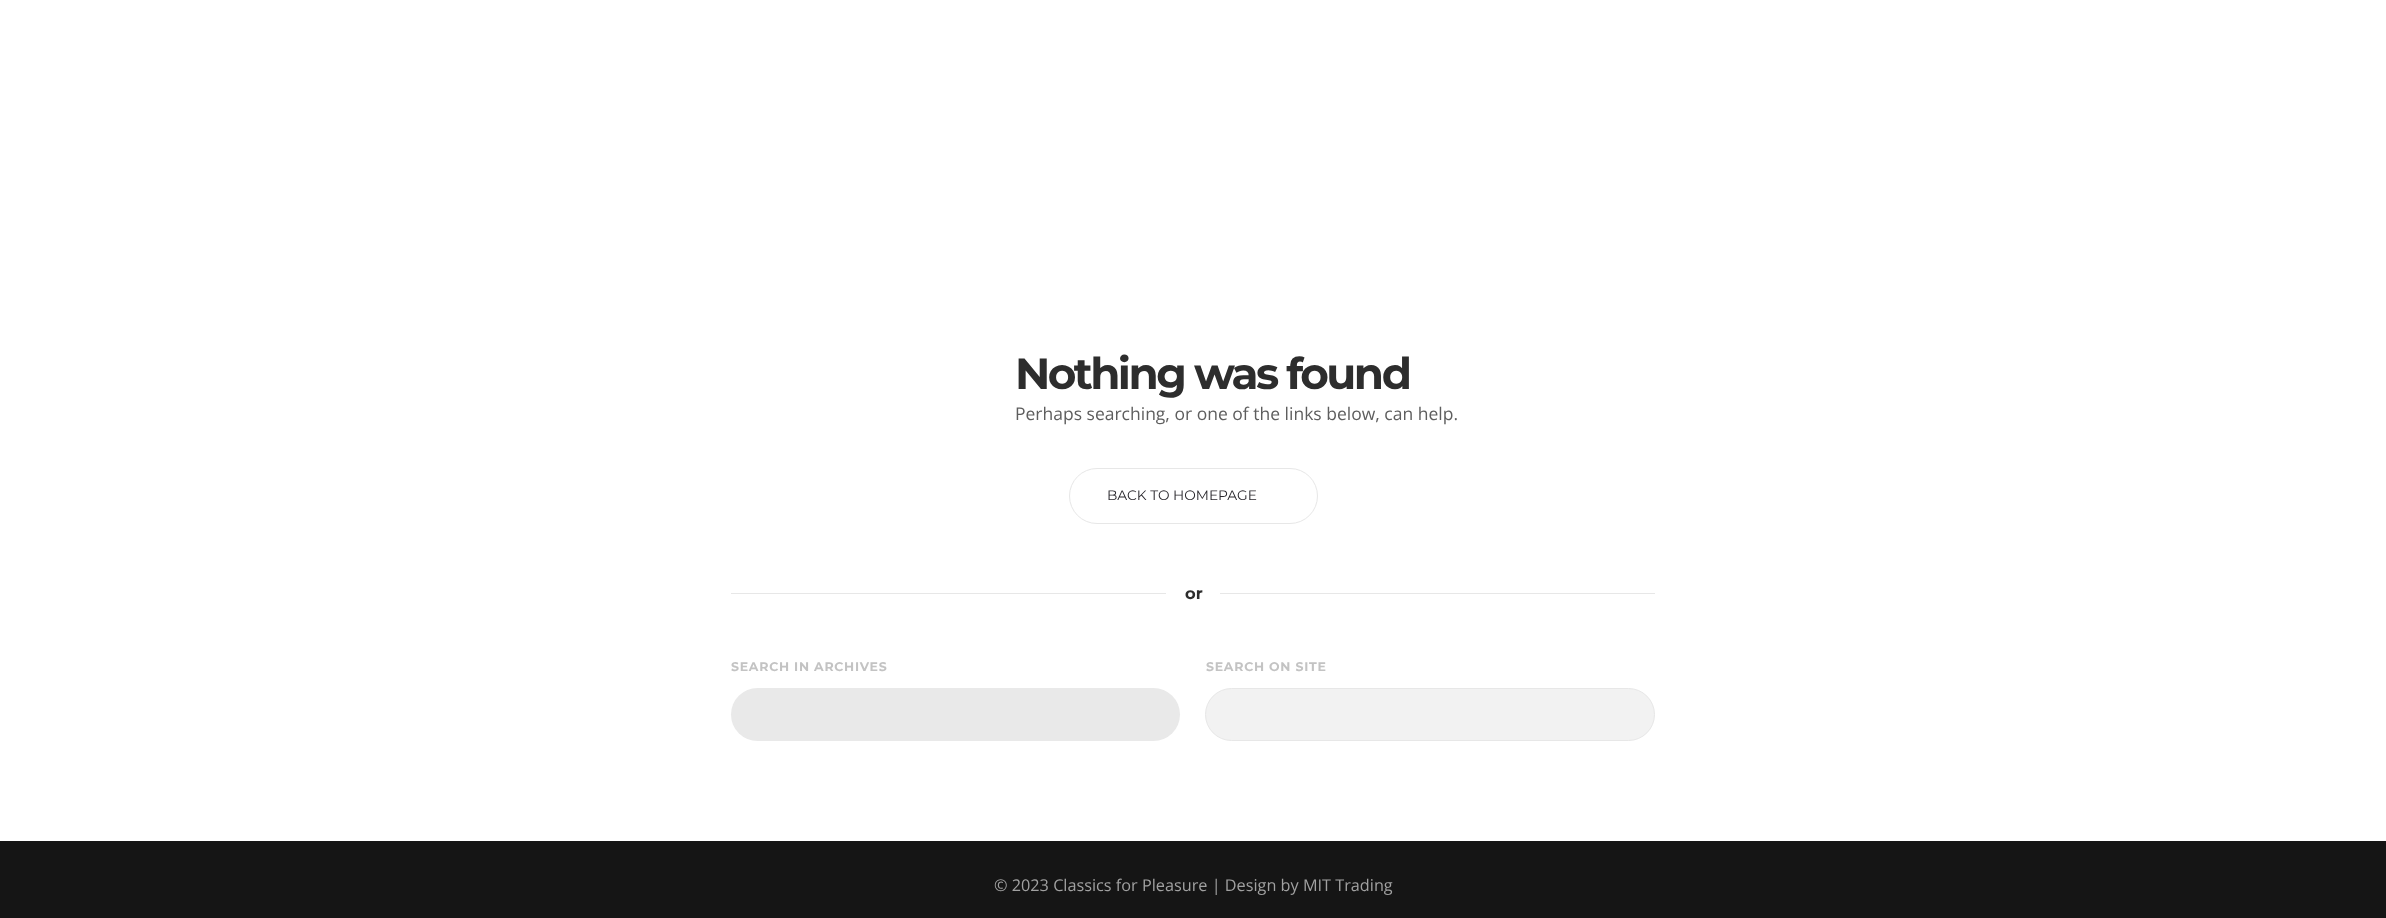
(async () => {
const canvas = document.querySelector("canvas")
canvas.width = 2386
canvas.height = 918
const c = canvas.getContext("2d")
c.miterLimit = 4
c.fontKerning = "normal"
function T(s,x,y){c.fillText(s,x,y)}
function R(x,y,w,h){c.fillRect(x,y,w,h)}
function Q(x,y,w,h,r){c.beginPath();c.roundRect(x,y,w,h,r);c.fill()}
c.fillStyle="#fff"
R(0,0,2386,918)
c.letterSpacing="-2.6px"
c.font="bold 43.75px Montserrat"
c.fillStyle="#2d2d2d"
T("Nothing was found",1015,389)
c.letterSpacing="0px"
c.font="17.5px Open Sans"
c.fillStyle="#5e5e5e"
T("Perhaps searching, or one of the links below, can help.",1015,420)
c.beginPath()
c.roundRect(1069.5,468.5,248,55,27.5)
c.strokeStyle="#e7e7e7"
c.stroke()
c.font="13.75px Montserrat"
c.fillStyle="#28262b"
T("BACK TO HOMEPAGE",1107,500)
c.fillStyle="#e7e7e7"
R(731,593,435,1)
c.font="bold 16.25px Montserrat"
c.fillStyle="#2d2d2d"
T("or",1185,599)
c.fillStyle="#e7e7e7"
R(1220,593,435,1)
c.letterSpacing="0.75px"
c.font="bold 12.5px Montserrat"
c.fillStyle="#c3c3c3"
T("SEARCH IN ARCHIVES",731,671)
c.fillStyle="#e9e9e9"
Q(731,688,449,53,26.5)
c.fillStyle="#c3c3c3"
T("SEARCH ON SITE",1206,671)
c.fillStyle="#f2f2f2"
c.beginPath()
c.roundRect(1205.5,688.5,449,52,26)
c.fill()
c.stroke()
c.fillStyle="#151515"
R(0,841,2386,77)
c.letterSpacing="0px"
c.font="16.25px Open Sans"
c.fillStyle="#a1a1a1"
T("© 2023 Classics for Pleasure | Design by MIT Trading",994,891)
})()
